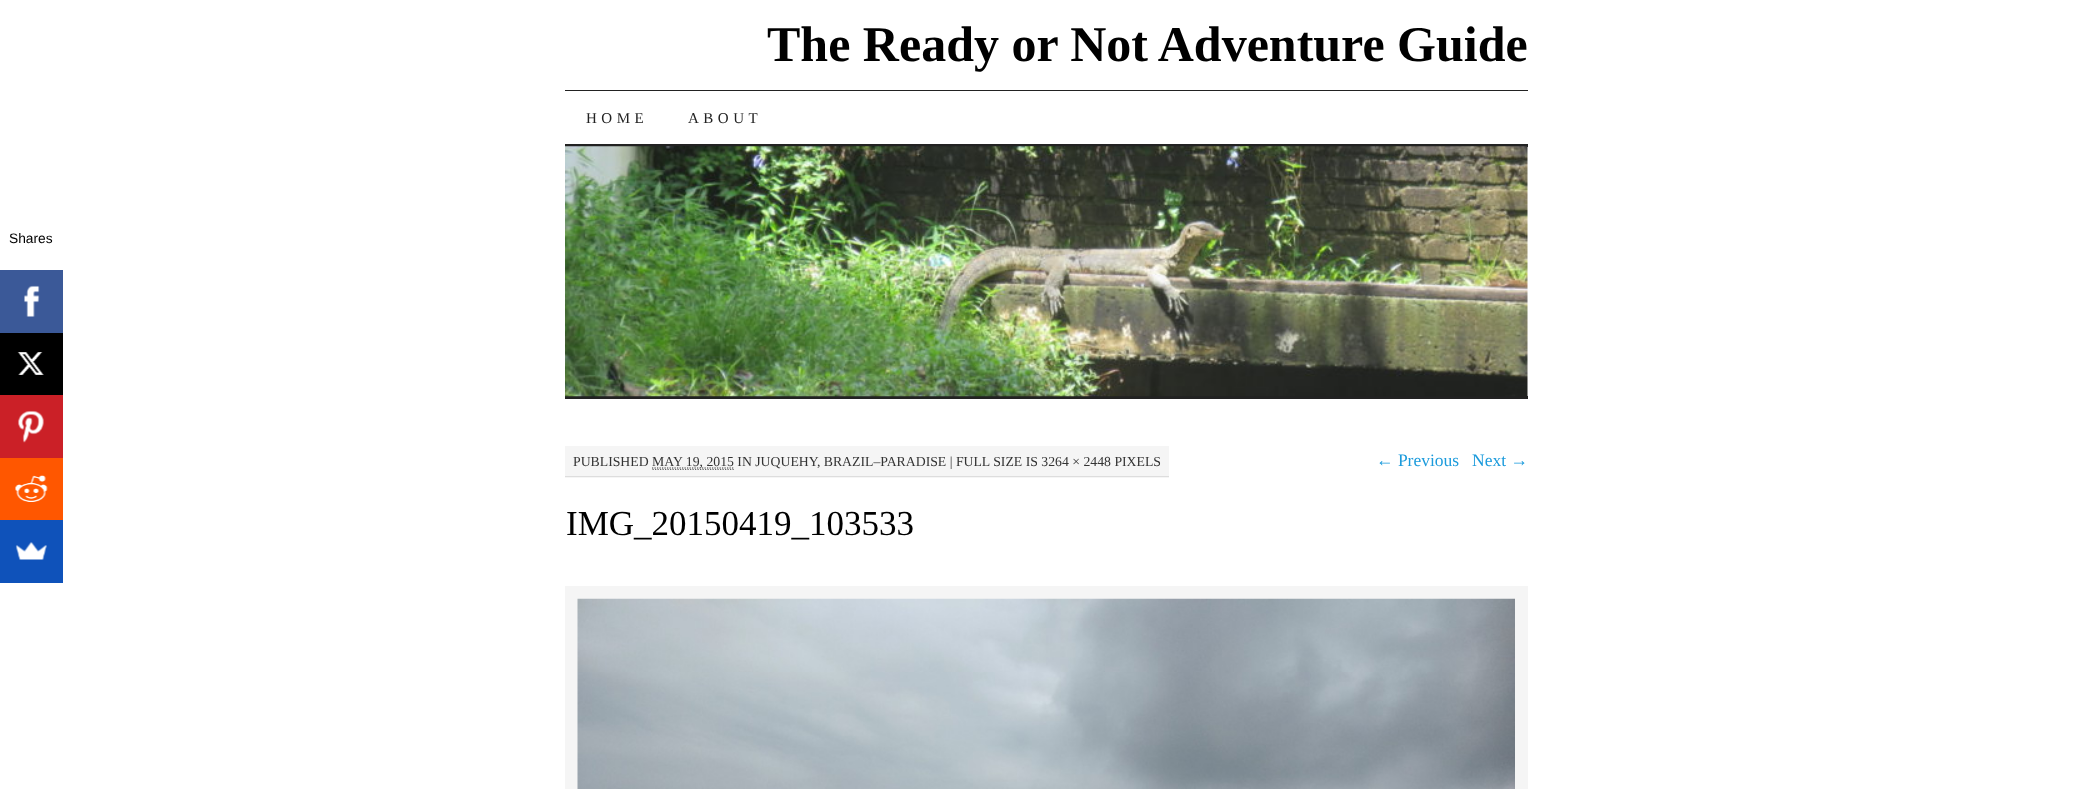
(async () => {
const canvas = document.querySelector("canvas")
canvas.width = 2093
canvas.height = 789
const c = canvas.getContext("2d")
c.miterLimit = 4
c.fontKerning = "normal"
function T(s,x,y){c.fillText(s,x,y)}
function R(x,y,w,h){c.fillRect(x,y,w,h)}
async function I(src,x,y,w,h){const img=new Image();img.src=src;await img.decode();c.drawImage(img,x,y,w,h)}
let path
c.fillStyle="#fff"
R(0,0,2093,789)
c.font="13.75px Liberation Sans"
c.fillStyle="#000"
T("Shares",9,243)
c.fillStyle="#3b5998"
R(0,270,63,63)
await I("1.png",24,285,16,32)
c.fillStyle="#000"
R(0,333,63,62)
await I("2.png",17,352,27,23)
c.fillStyle="#cb2027"
R(0,395,63,63)
await I("3.png",18,410,26,33)
c.fillStyle="#ff5700"
R(0,458,63,62)
await I("4.png",15,475,33,27)
c.fillStyle="#0f52ba"
R(0,520,63,63)
await I("5.png",15,542,32,18)
c.font="bold 50px Liberation Serif"
c.fillStyle="#000"
T("The Ready or Not Adventure Guide",767,61)
c.fillStyle="#222"
R(565,90,963,1)
R(565,144,963,3)
c.letterSpacing="4.5px"
c.font="15px Liberation Serif"
T("HOME",586,123)
T("ABOUT",688,123)
R(565,396,963,3)
await I("6.png",565,146,963,251)
c.fillStyle="#f5f5f5"
R(565,446,604,32)
c.fillStyle="#ddd"
R(565,476,604,1)
c.letterSpacing="0px"
c.font="13.75px Liberation Serif"
c.fillStyle="#333"
T("PUBLISHED",573,466)
path = new Path2D("M652.5 469.5h81.5")
c.strokeStyle="#666"
c.lineWidth=1.2
c.setLineDash([1.25,1.25])
c.stroke(path)
path = new Path2D("M652 468h82")
c.strokeStyle="#333"
c.stroke(path)
T("MAY 19, 2015 IN JUQUEHY, BRAZIL–PARADISE | FULL SIZE IS 3264 × 2448 PIXELS",652,466)
c.font="17.5px Liberation Serif"
c.fillStyle="#1c9bdc"
T("← Previous",1376,466)
T("Next →",1472,466)
c.font="35px Liberation Serif"
c.fillStyle="#000"
T("IMG_20150419_103533",566,535)
c.fillStyle="#f5f5f5"
R(565,586,963,203)
await I("7.png",577,598,938,191)
})()
